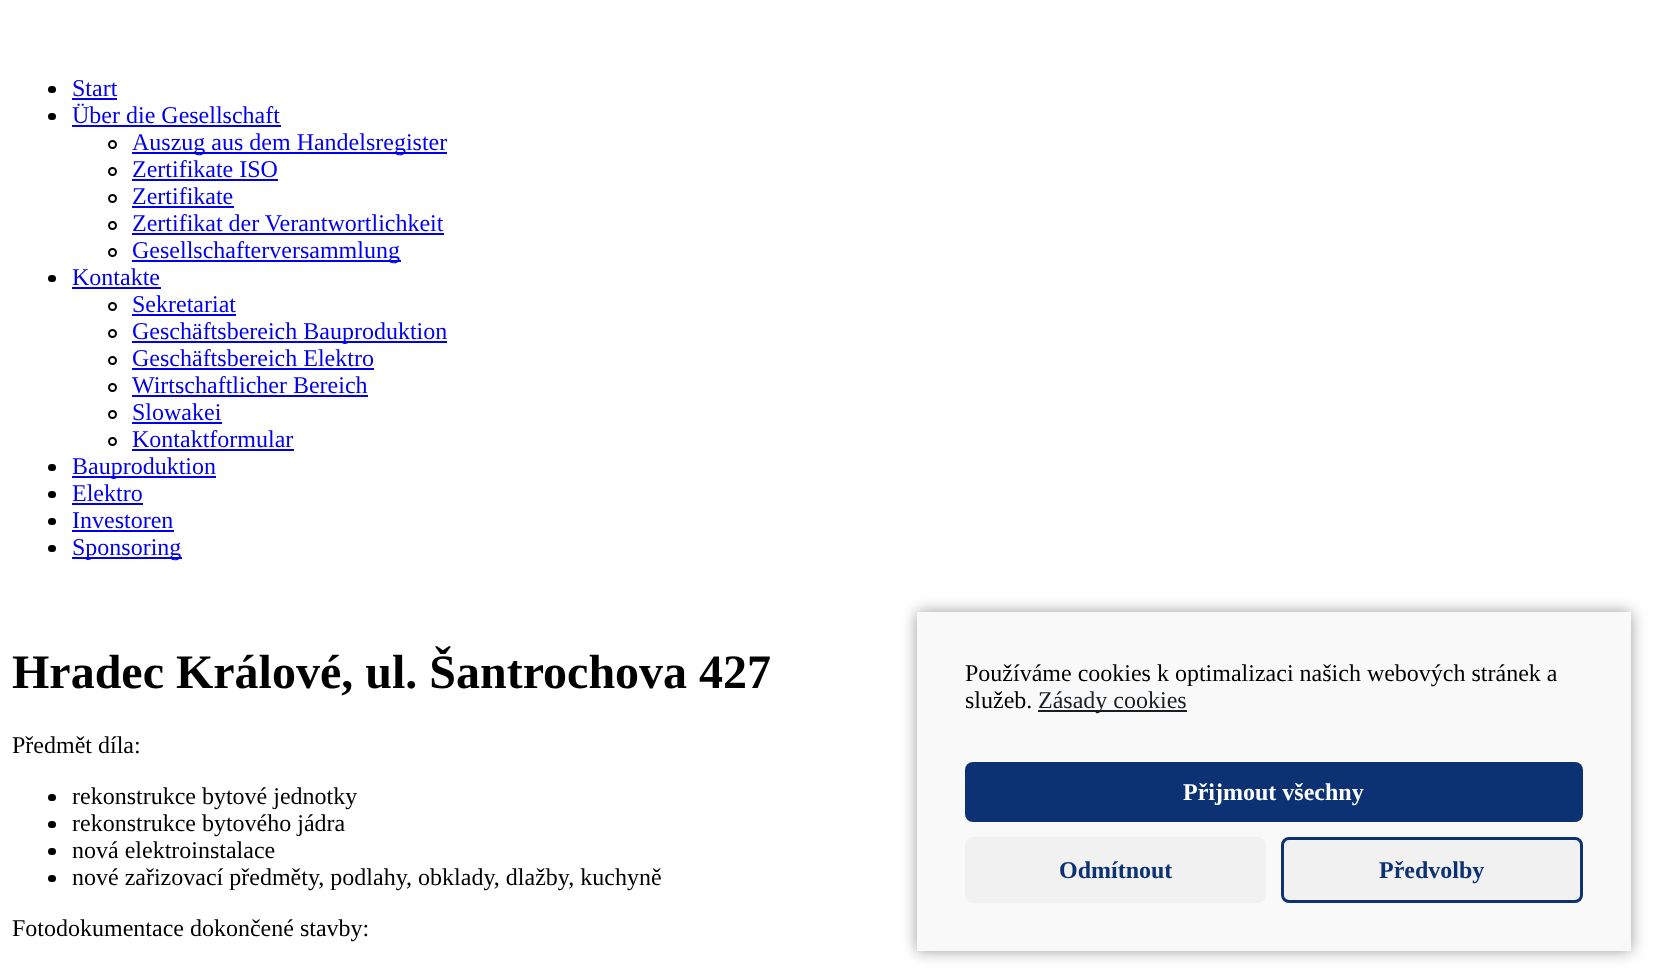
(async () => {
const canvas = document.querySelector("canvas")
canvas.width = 1654
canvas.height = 975
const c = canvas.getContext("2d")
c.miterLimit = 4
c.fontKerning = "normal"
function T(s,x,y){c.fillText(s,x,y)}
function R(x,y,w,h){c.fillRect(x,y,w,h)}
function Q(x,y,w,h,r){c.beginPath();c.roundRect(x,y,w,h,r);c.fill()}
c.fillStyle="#fff"
R(0,0,1654,975)
c.fillStyle="#000"
Q(48,86,8,7,3.5)
c.font="24px Liberation Serif"
c.fillStyle="#00e"
T("Start",72,96)
R(72,98,45,2)
c.fillStyle="#000"
Q(48,113,8,7,3.5)
c.fillStyle="#00e"
T("Über die Gesellschaft",72,123)
R(72,125,209,2)
c.beginPath()
c.arc(112.5,144.5,3.5,0,7)
c.strokeStyle="#000"
c.lineWidth=2
c.stroke()
R(132,152,315,2)
T("Auszug aus dem Handelsregister",132,150)
c.beginPath()
c.arc(112.5,171.5,3.5,0,7)
c.stroke()
T("Zertifikate ISO",132,177)
R(132,179,146,2)
c.beginPath()
c.arc(112.5,198.5,3.5,0,7)
c.stroke()
T("Zertifikate",132,204)
R(132,206,102,2)
c.beginPath()
c.arc(112.5,225.5,3.5,0,7)
c.stroke()
T("Zertifikat der Verantwortlichkeit",132,231)
R(132,233,312,2)
c.beginPath()
c.arc(112.5,252.5,3.5,0,7)
c.stroke()
R(132,260,269,2)
T("Gesellschafterversammlung",132,258)
c.fillStyle="#000"
Q(48,275,8,7,3.5)
c.fillStyle="#00e"
T("Kontakte",72,285)
R(72,287,89,2)
c.beginPath()
c.arc(112.5,306.5,3.5,0,7)
c.stroke()
T("Sekretariat",132,312)
R(132,314,104,2)
c.beginPath()
c.arc(112.5,333.5,3.5,0,7)
c.stroke()
R(132,341,315,2)
T("Geschäftsbereich Bauproduktion",132,339)
c.beginPath()
c.arc(112.5,360.5,3.5,0,7)
c.stroke()
T("Geschäftsbereich Elektro",132,366)
R(132,368,242,2)
c.beginPath()
c.arc(112.5,387.5,3.5,0,7)
c.stroke()
T("Wirtschaftlicher Bereich",132,393)
R(132,395,236,2)
c.beginPath()
c.arc(112.5,414.5,3.5,0,7)
c.stroke()
T("Slowakei",132,420)
R(132,422,90,2)
c.beginPath()
c.arc(112.5,441.5,3.5,0,7)
c.stroke()
T("Kontaktformular",132,447)
R(132,449,162,2)
c.fillStyle="#000"
Q(48,464,8,7,3.5)
c.fillStyle="#00e"
R(72,476,144,2)
T("Bauproduktion",72,474)
c.fillStyle="#000"
Q(48,491,8,7,3.5)
c.fillStyle="#00e"
T("Elektro",72,501)
R(72,503,71,2)
c.fillStyle="#000"
Q(48,518,8,7,3.5)
c.fillStyle="#00e"
T("Investoren",72,528)
R(72,530,102,2)
c.fillStyle="#000"
Q(48,545,8,7,3.5)
c.fillStyle="#00e"
R(72,557,110,2)
T("Sponsoring",72,555)
c.font="bold 48px Liberation Serif"
c.fillStyle="#000"
T("Hradec Králové, ul. Šantrochova 427",12,688)
c.font="24px Liberation Serif"
T("Předmět díla:",12,753)
Q(48,794,8,7,3.5)
T("rekonstrukce bytové jednotky",72,804)
Q(48,821,8,7,3.5)
T("rekonstrukce bytového jádra",72,831)
Q(48,848,8,7,3.5)
T("nová elektroinstalace",72,858)
Q(48,875,8,7,3.5)
T("nové zařizovací předměty, podlahy, obklady, dlažby, kuchyně",72,885)
T("Fotodokumentace dokončené stavby:",12,936)
c.fillStyle="#00000066"
c.filter="blur(7.5px)"
c.beginPath()
c.rect(917,612,714,339)
c.fill()
c.filter="none"
c.fillStyle="#f9f9f9"
R(917,612,714,339)
c.fillStyle="#000"
T("Používáme cookies k optimalizaci našich webových stránek a",965,681)
T("služeb.",965,708)
c.fillStyle="#191e22"
R(1038,710,149,2)
T("Zásady cookies",1038,708)
c.fillStyle="#0c3273"
Q(965,762,618,60,8)
c.font="bold 24px Liberation Serif"
c.fillStyle="#fff"
T("Přijmout všechny",1183,800)
c.fillStyle="#f1f1f1"
Q(965,837,301,66,8)
c.fillStyle="#0c3273"
T("Odmítnout",1059,878)
c.fillStyle="#f1f1f1"
c.beginPath()
c.roundRect(1282.5,838.5,299,63,6.5)
c.fill()
c.strokeStyle="#0c3273"
c.lineWidth=3
c.stroke()
c.fillStyle="#0c3273"
T("Předvolby",1379,878)
})()
